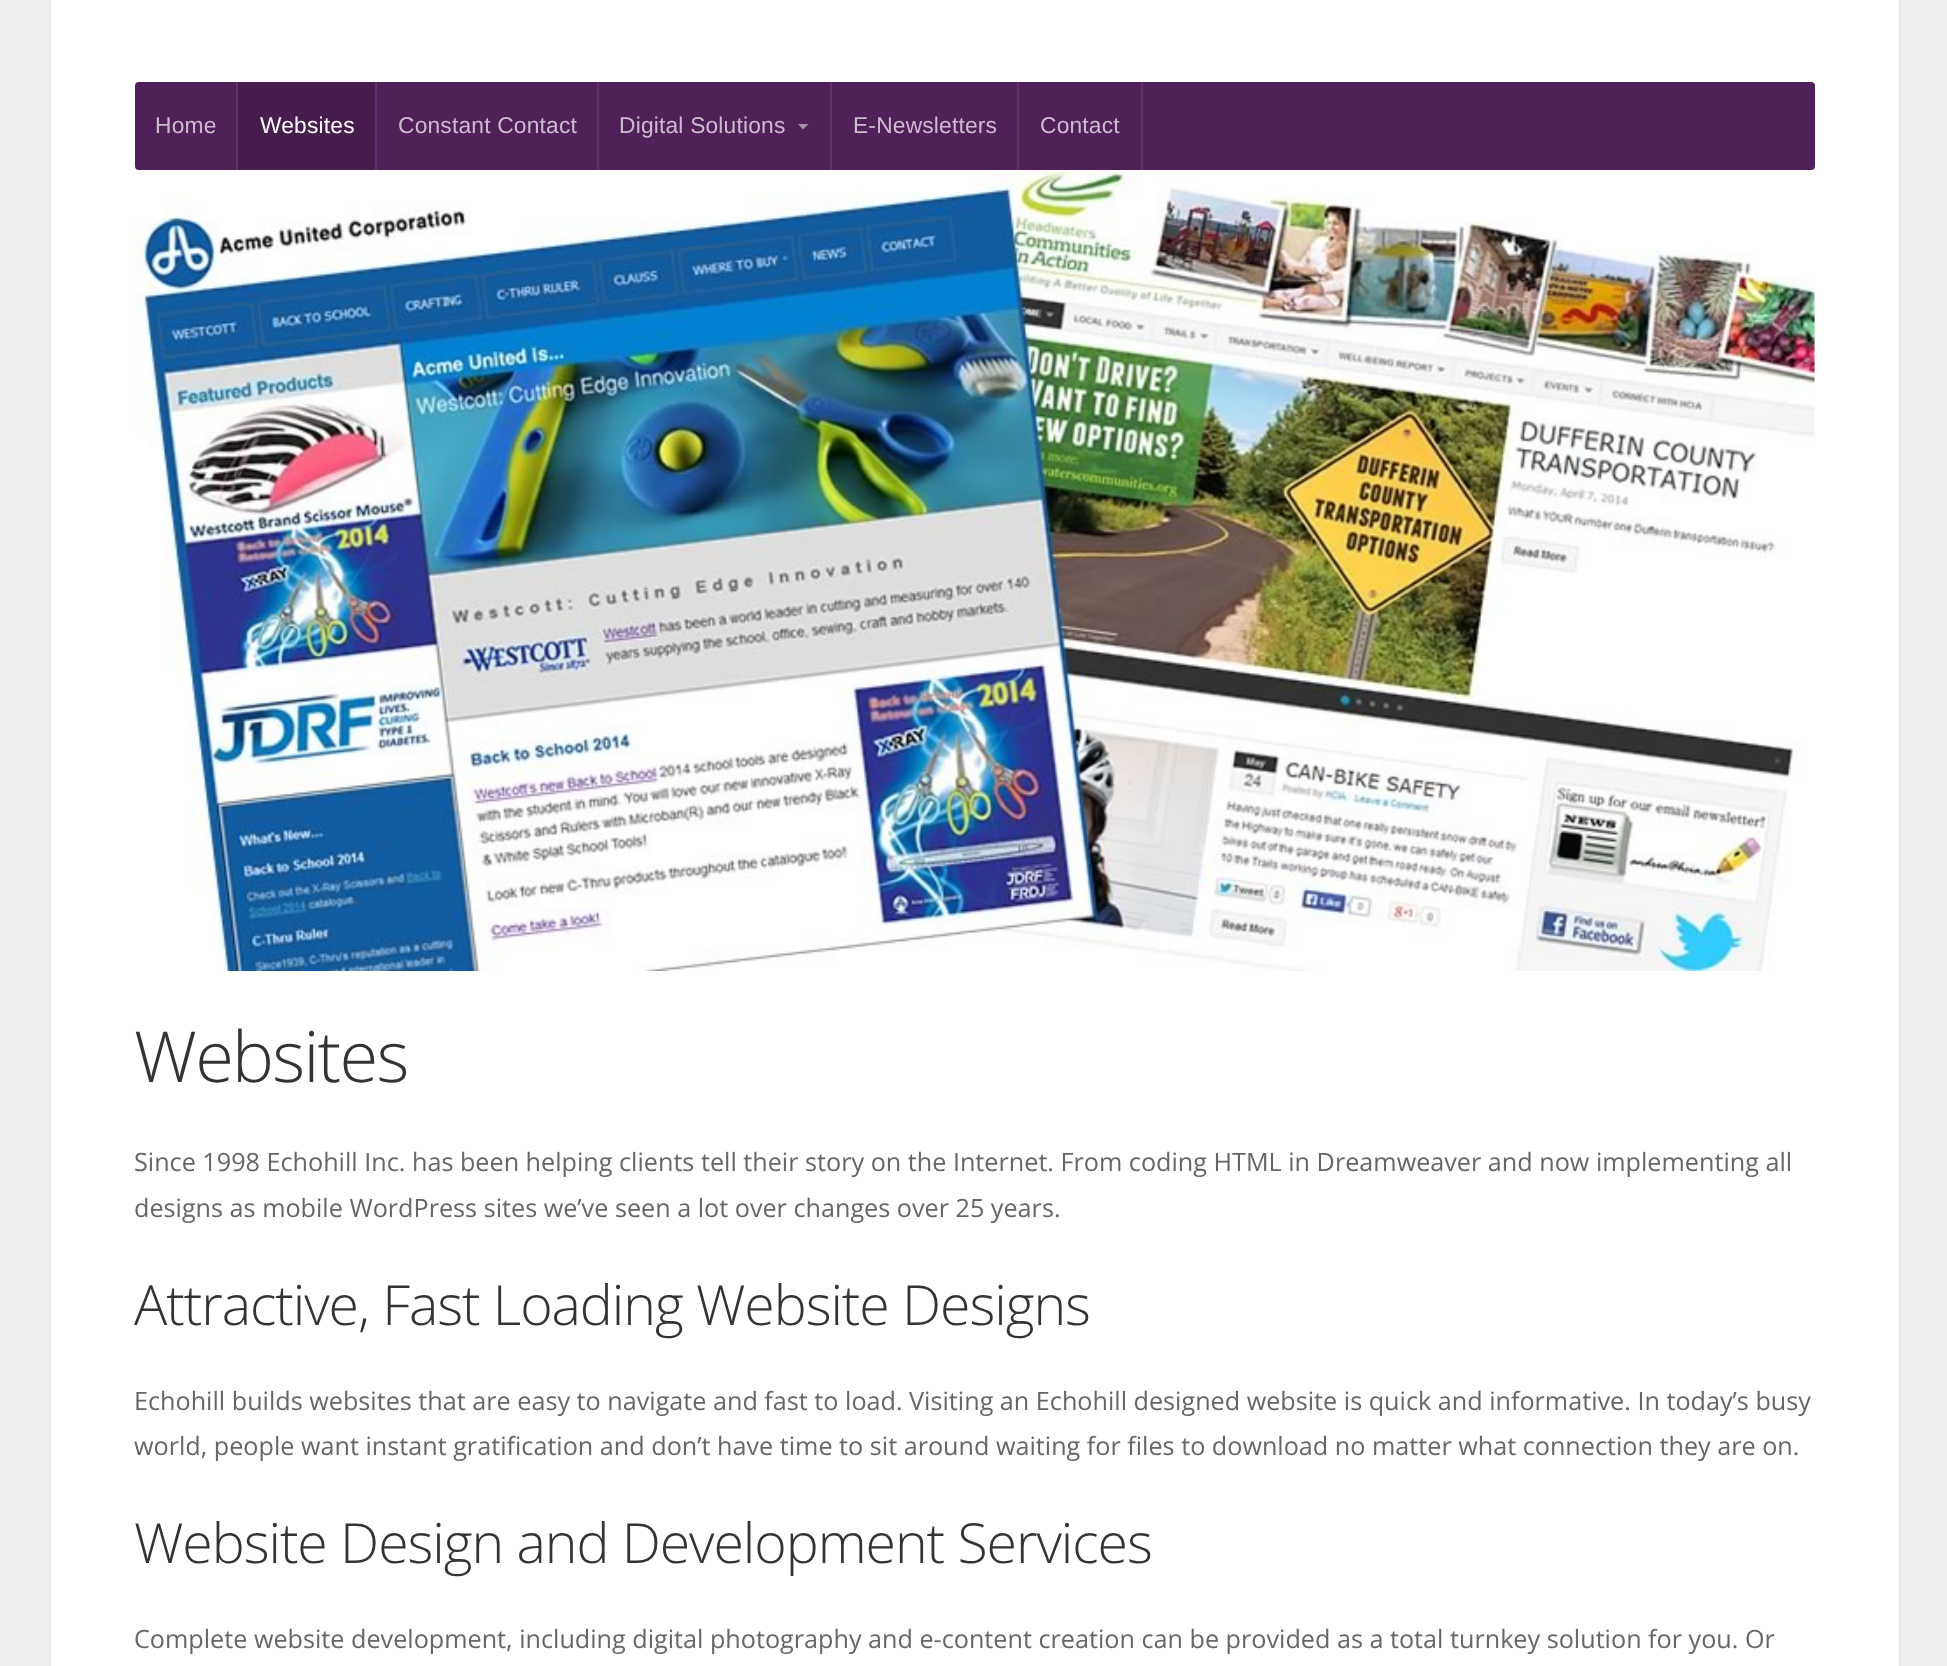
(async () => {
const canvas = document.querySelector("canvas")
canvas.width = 1947
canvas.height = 1666
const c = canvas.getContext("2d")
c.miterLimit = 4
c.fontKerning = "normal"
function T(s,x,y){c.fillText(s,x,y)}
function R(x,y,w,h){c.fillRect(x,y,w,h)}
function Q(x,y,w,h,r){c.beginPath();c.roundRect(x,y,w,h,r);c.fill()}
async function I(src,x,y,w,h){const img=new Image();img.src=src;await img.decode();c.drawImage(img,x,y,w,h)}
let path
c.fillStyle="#eee"
R(0,0,1947,1666)
c.fillStyle="#0000001f"
c.filter="blur(1px)"
c.beginPath()
c.roundRect(51,-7,1848,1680,4)
c.fill()
c.filter="none"
c.fillStyle="#fff"
R(51,0,1848,1666)
await I("1.png",135,166,1680,805)
c.fillStyle="#502158"
Q(135,82,1680,88,4)
c.fillStyle="#5e3365"
R(236,82,2,88)
c.letterSpacing="0.2px"
c.font="22.75px Liberation Sans"
c.fillStyle="#cbbccd"
T("Home",155,133)
c.fillStyle="#5e3365"
R(375,82,2,88)
c.fillStyle="#461d4d"
R(238,82,137,88)
c.fillStyle="#fff"
T("Websites",260,133)
c.fillStyle="#5e3365"
R(597,82,2,88)
c.fillStyle="#cbbccd"
T("Constant Contact",398,133)
c.fillStyle="#5e3365"
R(830,82,2,88)
c.fillStyle="#cbbccd"
T("Digital Solutions",619,133)
c.fillStyle="#a890ac"
path = new Path2D("M798 124h10.5l-5.5 5.5z")
c.fill(path)
c.fillStyle="#5e3365"
R(1017,82,2,88)
c.fillStyle="#cbbccd"
T("E-Newsletters",853,133)
c.fillStyle="#5e3365"
R(1141,82,2,88)
c.fillStyle="#cbbccd"
T("Contact",1040,133)
c.letterSpacing="-1.75px"
c.font="300 70.5px Open Sans"
c.fillStyle="#333"
T("Websites",134,1082)
c.letterSpacing="0px"
c.font="25.2px Open Sans"
c.fillStyle="#666"
T("Since 1998 Echohill Inc. has been helping clients tell their story on the Internet. From coding HTML in Dreamweaver and now implementing all",134,1171)
T("designs as mobile WordPress sites we’ve seen a lot over changes over 25 years.",134,1217)
c.letterSpacing="-1.05px"
c.font="300 55.4px Open Sans"
c.fillStyle="#333"
T("Attractive, Fast Loading Website Designs",134,1325)
c.letterSpacing="0px"
c.font="25.2px Open Sans"
c.fillStyle="#666"
T("Echohill builds websites that are easy to navigate and fast to load. Visiting an Echohill designed website is quick and informative. In today’s busy",134,1410)
T("world, people want instant gratification and don’t have time to sit around waiting for files to download no matter what connection they are on.",134,1455)
c.letterSpacing="-1.05px"
c.font="300 55.4px Open Sans"
c.fillStyle="#333"
T("Website Design and Development Services",134,1563)
c.letterSpacing="0px"
c.font="25.2px Open Sans"
c.fillStyle="#666"
T("Complete website development, including digital photography and e-content creation can be provided as a total turnkey solution for you. Or",134,1648)
})()
